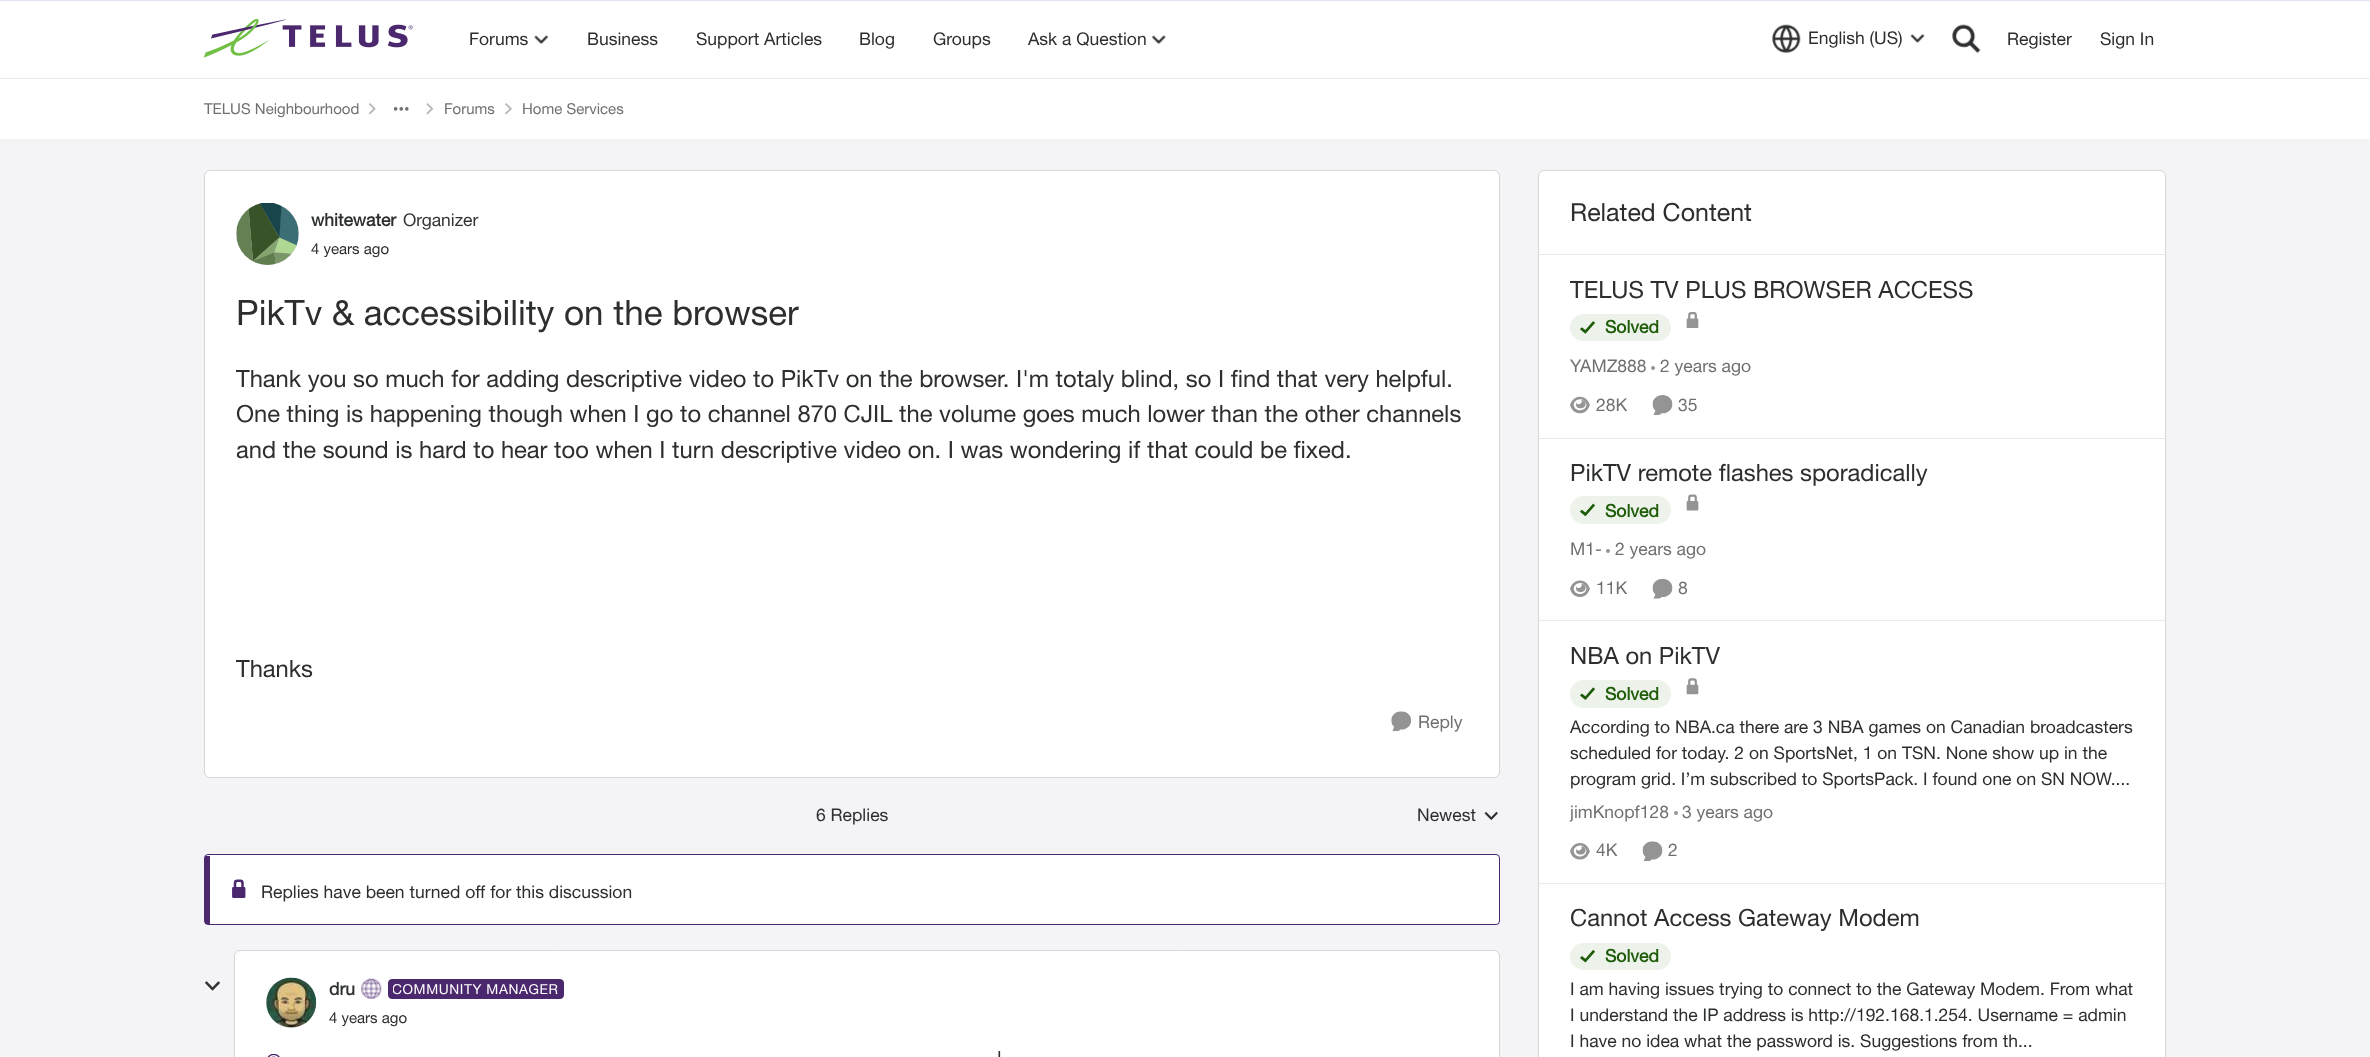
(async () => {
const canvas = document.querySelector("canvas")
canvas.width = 2370
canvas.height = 1057
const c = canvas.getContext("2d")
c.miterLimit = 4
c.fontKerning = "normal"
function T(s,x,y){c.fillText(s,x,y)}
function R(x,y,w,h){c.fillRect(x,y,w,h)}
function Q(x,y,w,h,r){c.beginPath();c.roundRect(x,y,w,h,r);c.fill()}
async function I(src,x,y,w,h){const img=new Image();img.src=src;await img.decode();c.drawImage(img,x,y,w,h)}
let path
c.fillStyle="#f4f4f7"
R(0,0,2370,1057)
c.fillStyle="#fff"
R(0,0,2370,139)
c.fillStyle="#ebebeb"
R(0,78,2370,1)
await I("1.png",0,0,2370,2)
await I("2.png",204,19,209,39)
c.font="17.5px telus"
c.fillStyle="#2c2e30"
T("Forums",469,45)
await I("3.png",534,35,15,10)
T("Business",587,45)
T("Support Articles",696,45)
T("Blog",859,45)
T("Groups",933,45)
T("Ask a Question",1028,45)
await I("4.png",1151,35,15,10)
await I("5.png",1772,24,29,29)
T("English (US)",1808,44)
await I("6.png",1910,33,15,10)
await I("7.png",1952,24,29,29)
T("Register",2007,45)
T("Sign In",2100,45)
c.font="15px telus"
c.fillStyle="#707070"
T("TELUS Neighbourhood",204,114)
await I("8.png",368,103,8,12)
await I("9.png",393,107,16,4)
await I("10.png",426,103,7,12)
T("Forums",444,114)
await I("11.png",505,103,7,12)
T("Home Services",522,114)
c.fillStyle="#fff"
c.beginPath()
c.roundRect(204.5,170.5,1295,607,5.5)
c.fill()
c.strokeStyle="#d6d6d6"
c.stroke()
c.fillStyle="#d9d9d9"
Q(236,203,63,62,31)
await I("12.png",236,203,63,62)
c.font="bold 17.5px telus"
c.fillStyle="#2c2e30"
T("whitewater",311,226)
c.font="17.5px telus"
c.fillStyle="#333"
T("Organizer",403,226)
c.font="15px telus"
c.fillStyle="#2c2e30"
T("4 years ago",311,254)
c.font="35px telus"
T("PikTv & accessibility on the browser",236,325)
c.font="23.75px telus"
T("Thank you so much for adding descriptive video to PikTv on the browser. I'm totaly blind, so I find that very helpful.",236,387)
T("One thing is happening though when I go to channel 870 CJIL the volume goes much lower than the other channels",236,422)
T("and the sound is hard to hear too when I turn descriptive video on. I was wondering if that could be fixed.",236,458)
T("Thanks",236,677)
await I("13.png",1391,711,21,21)
c.font="17.5px telus"
c.fillStyle="#707070"
T("Reply",1418,728)
c.fillStyle="#2c2e30"
T("6 Replies",816,821)
T("Newest",1417,821)
await I("14.png",1484,811,14,9)
c.fillStyle="#fff"
path = new Path2D("M210 855h1286c2 0 3 1 3 3v63c0 2-1 3-3 3h-1286z")
c.fill(path)
c.beginPath()
c.roundRect(204.5,854.5,1295,70,3.5)
c.strokeStyle="#4b286d"
c.stroke()
c.fillStyle="#4b286d"
R(205,856,5,68)
await I("15.png",232,879,14,19)
c.fillStyle="#2c2e30"
T("Replies have been turned off for this discussion",261,898)
await I("16.png",205,981,15,10)
c.fillStyle="#fff"
c.beginPath()
c.roundRect(234.5,950.5,1265,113,5.5)
c.fill()
c.strokeStyle="#d6d6d6"
c.stroke()
c.fillStyle="#d9d9d9"
c.beginPath()
c.arc(291,1003,25,0,7)
c.fill()
await I("17.png",266,977,51,51)
c.font="bold 17.5px telus"
c.fillStyle="#2c2e30"
T("dru",329,995)
await I("18.png",361,978,21,21)
c.fillStyle="#4b286d"
c.beginPath()
c.roundRect(388.5,979.5,175,19,3.5)
c.fill()
c.strokeStyle="#4b286d"
c.stroke()
c.save()
c.beginPath()
c.rect(393,981,166,15)
c.clip()
c.letterSpacing="0.6px"
c.font="13.75px telus"
c.fillStyle="#fff"
T("COMMUNITY MANAGER",392,994)
c.restore()
c.font="15px telus"
c.fillStyle="#2c2e30"
T("4 years ago",329,1023)
await I("19.png",267,1054,13,3)
c.font="23.75px telus"
T("'",996,1068)
c.fillStyle="#fff"
c.beginPath()
c.roundRect(1538.5,170.5,627,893,5.5)
c.fill()
c.strokeStyle="#d6d6d6"
c.stroke()
c.fillStyle="#ebebeb"
R(1539,254,626,1)
c.font="25px telus"
c.fillStyle="#2c2e30"
T("Related Content",1570,221)
c.fillStyle="#ebebeb"
R(1539,438,626,1)
c.font="23.75px telus"
c.fillStyle="#2c2e30"
T("TELUS TV PLUS BROWSER ACCESS",1570,298)
c.fillStyle="#edf2eb"
Q(1570,314,101,27,13.5)
await I("20.png",1580,321,15,13)
c.font="bold 17.5px telus"
c.fillStyle="#1f5c09"
T("Solved",1605,333)
await I("21.png",1686,312,13,16)
c.font="17.5px telus"
c.fillStyle="#707070"
T("YAMZ888",1570,372)
c.fillStyle="#949494"
c.beginPath()
c.arc(1653,368,2,0,7)
c.fill()
c.fillStyle="#707070"
T("2 years ago",1660,372)
await I("22.png",1570,396,20,18)
T("28K",1596,411)
await I("23.png",1652,395,21,20)
T("35",1678,411)
c.fillStyle="#ebebeb"
R(1539,620,626,1)
c.font="23.75px telus"
c.fillStyle="#2c2e30"
T("PikTV remote flashes sporadically",1570,481)
c.fillStyle="#edf2eb"
Q(1570,496,101,28,14)
await I("24.png",1580,503,15,14)
c.font="bold 17.5px telus"
c.fillStyle="#1f5c09"
T("Solved",1605,517)
await I("25.png",1686,494,13,17)
c.font="17.5px telus"
c.fillStyle="#707070"
T("M1-",1570,555)
c.fillStyle="#949494"
c.beginPath()
c.arc(1608,551,2,0,7)
c.fill()
c.fillStyle="#707070"
T("2 years ago",1615,555)
await I("26.png",1570,580,20,17)
T("11K",1596,594)
await I("27.png",1652,578,21,21)
T("8",1678,594)
c.fillStyle="#ebebeb"
R(1539,883,626,1)
c.font="23.75px telus"
c.fillStyle="#2c2e30"
T("NBA on PikTV",1570,664)
c.fillStyle="#edf2eb"
Q(1570,680,101,28,14)
await I("28.png",1580,687,15,13)
c.font="bold 17.5px telus"
c.fillStyle="#1f5c09"
T("Solved",1605,700)
await I("29.png",1686,678,13,17)
c.font="17.5px telus"
c.fillStyle="#2c2e30"
T("According to NBA.ca there are 3 NBA games on Canadian broadcasters",1570,733)
T("scheduled for today. 2 on SportsNet, 1 on TSN. None show up in the",1570,759)
T("program grid. I’m subscribed to SportsPack. I found one on SN NOW....",1570,785)
c.fillStyle="#707070"
T("jimKnopf128",1570,818)
c.fillStyle="#949494"
c.beginPath()
c.arc(1676,813,2,0,7)
c.fill()
c.fillStyle="#707070"
T("3 years ago",1682,818)
await I("30.png",1570,843,20,17)
T("4K",1596,856)
await I("31.png",1642,841,21,21)
T("2",1668,856)
c.font="23.75px telus"
c.fillStyle="#2c2e30"
T("Cannot Access Gateway Modem",1570,926)
c.fillStyle="#edf2eb"
Q(1570,943,101,27,13.5)
await I("32.png",1580,950,15,13)
c.font="bold 17.5px telus"
c.fillStyle="#1f5c09"
T("Solved",1605,962)
c.font="17.5px telus"
c.fillStyle="#2c2e30"
T("I am having issues trying to connect to the Gateway Modem. From what",1570,995)
T("I understand the IP address is http://192.168.1.254. Username = admin",1570,1021)
T("I have no idea what the password is. Suggestions from th...",1570,1047)
})()
